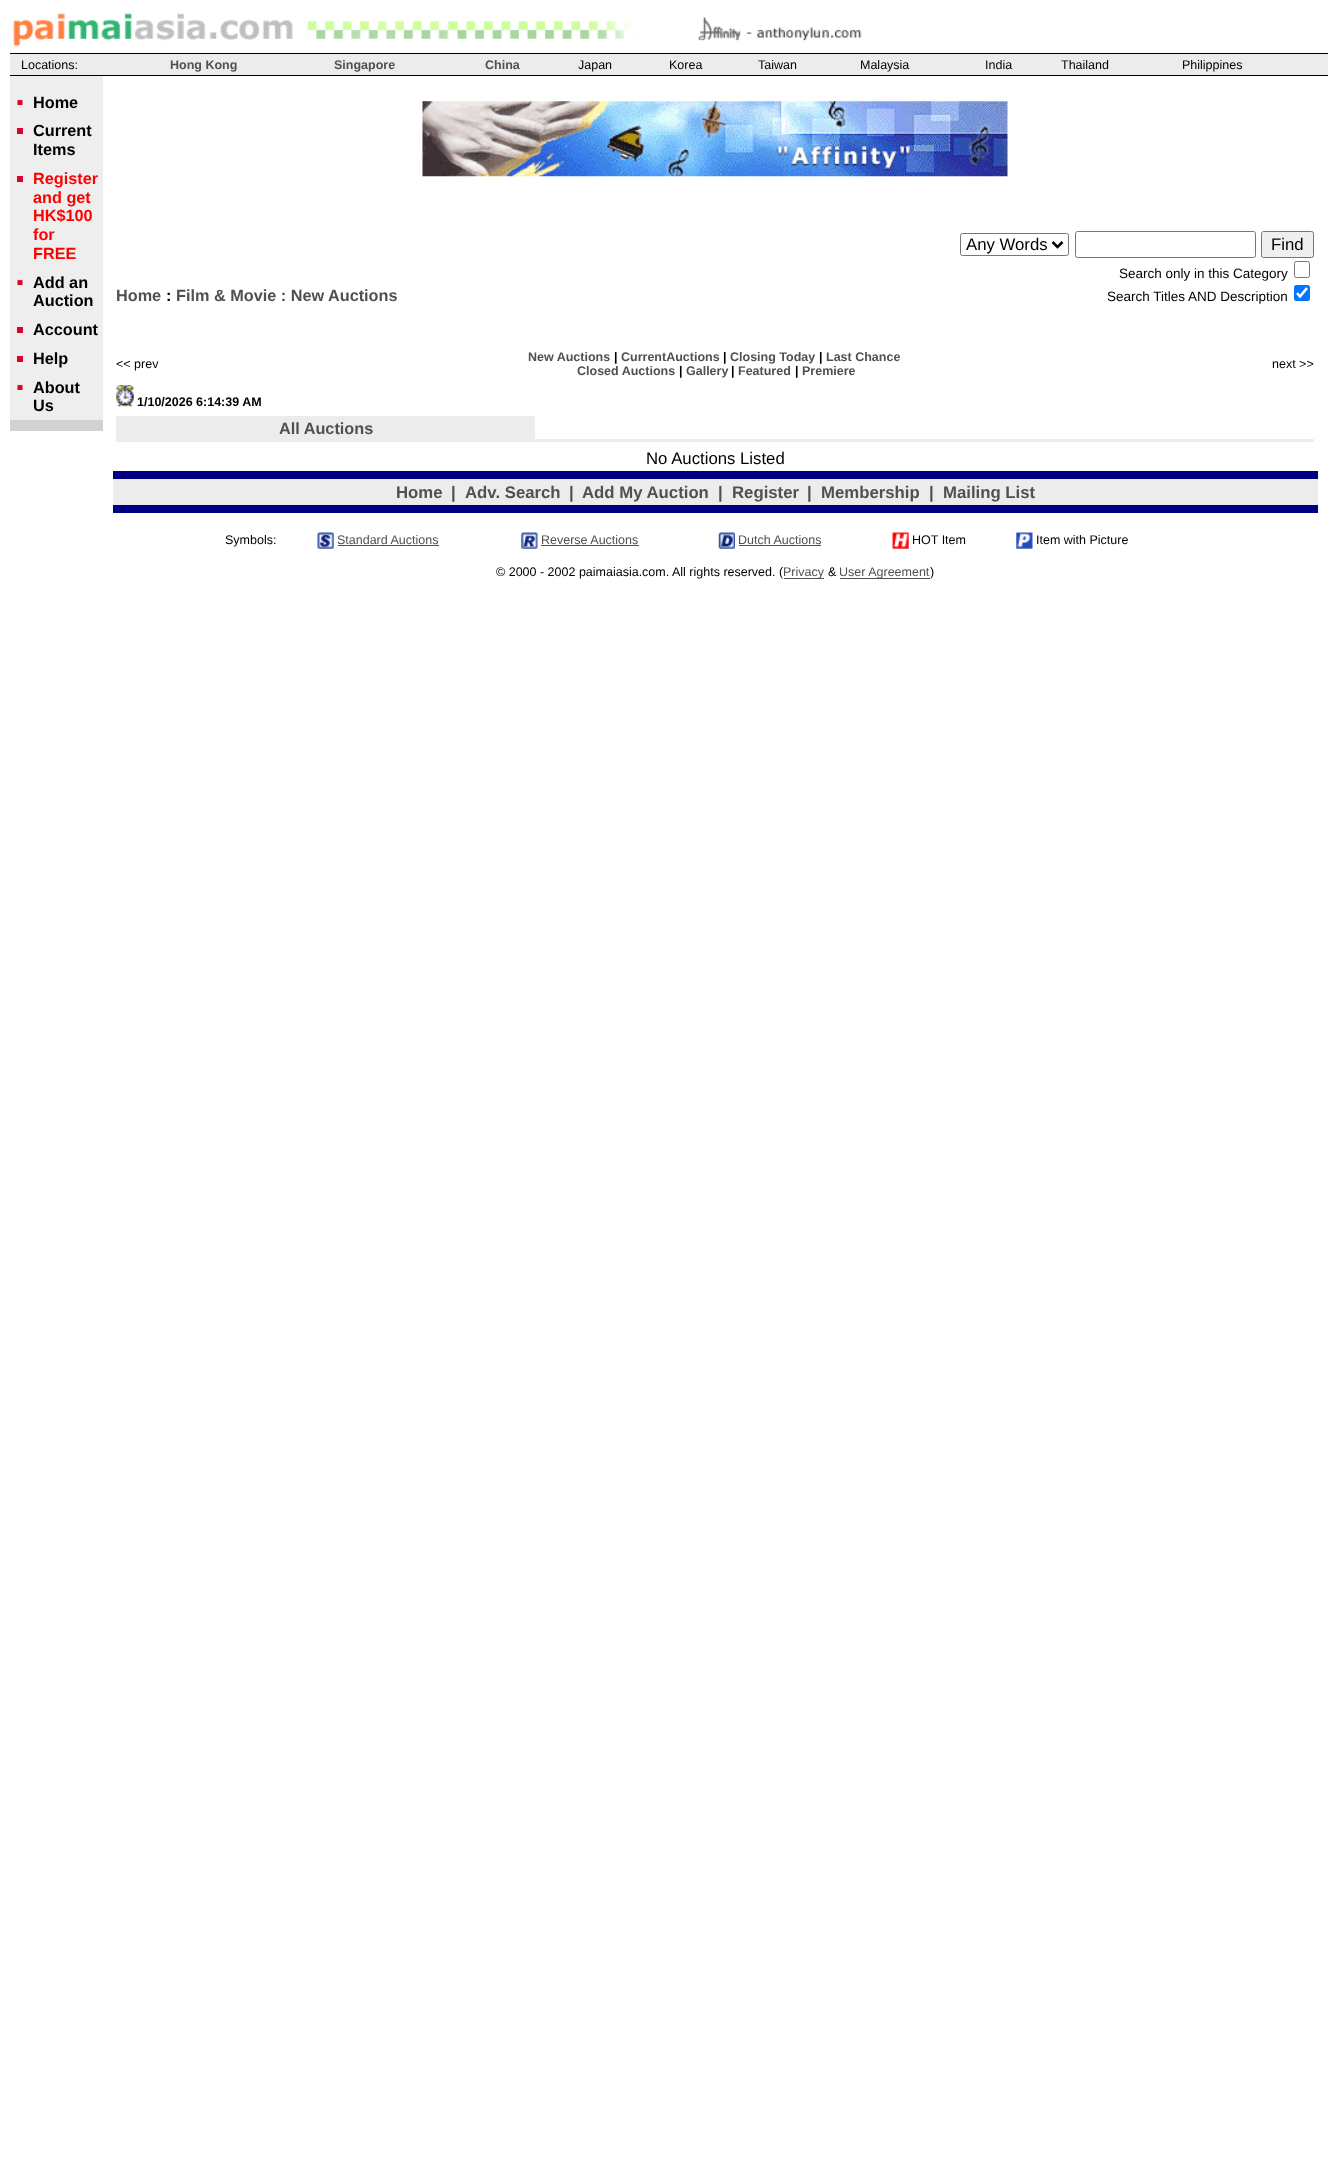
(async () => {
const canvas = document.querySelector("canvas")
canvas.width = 1337
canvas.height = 2179
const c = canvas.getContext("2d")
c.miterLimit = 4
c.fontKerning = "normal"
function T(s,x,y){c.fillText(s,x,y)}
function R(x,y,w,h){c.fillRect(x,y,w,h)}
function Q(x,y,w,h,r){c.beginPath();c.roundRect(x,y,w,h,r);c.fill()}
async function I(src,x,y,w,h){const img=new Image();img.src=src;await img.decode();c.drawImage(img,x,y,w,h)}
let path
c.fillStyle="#fff"
R(0,0,1337,2179)
await I("1.png",13,13,849,34)
c.fillStyle="#000"
R(10,53,1318,1)
c.fillStyle="#ececec"
R(10,54,1318,21)
c.font="12.5px Liberation Sans"
c.fillStyle="#000"
T("Locations:",21,69)
c.font="bold 12.5px Liberation Sans"
c.fillStyle="#505050"
T("Hong Kong",170,69)
T("Singapore",334,69)
T("China",485,69)
c.font="12.5px Liberation Sans"
c.fillStyle="#000"
T("Japan",578,69)
T("Korea",669,69)
T("Taiwan",758,69)
T("Malaysia",860,69)
T("India",985,69)
T("Thailand",1061,69)
T("Philippines",1182,69)
R(10,75,1318,1)
c.fillStyle="#eee"
R(10,76,93,344)
await I("2.png",17,99,6,6)
c.font="bold 16.25px Liberation Sans"
c.fillStyle="#000"
T("Home",33,108)
c.fillStyle="#df0029"
R(17,128,6,6)
c.fillStyle="#000"
T("Current",33,136)
T("Items",33,155)
c.fillStyle="#df0029"
R(17,176,6,6)
c.fillStyle="#f00"
T("Register",33,184)
T("and get",33,203)
T("HK$100",33,221)
T("for",33,240)
T("FREE",33,259)
await I("2.png",17,279,6,6)
c.fillStyle="#000"
T("Add an",33,288)
T("Auction",33,306)
c.fillStyle="#df0029"
R(17,327,6,6)
c.fillStyle="#000"
T("Account",33,335)
c.fillStyle="#df0029"
R(17,356,6,6)
c.fillStyle="#000"
T("Help",33,364)
await I("2.png",17,384,6,6)
T("About",33,393)
T("Us",33,411)
c.fillStyle="#d2d2d2"
R(10,420,93,11)
await I("3.png",422,101,586,76)
c.fillStyle="#505050"
T("Home",116,301)
c.fillStyle="#000"
T(":",166,301)
c.fillStyle="#505050"
T("Film & Movie : New Auctions",176,301)
c.beginPath()
c.roundRect(960.5,233.5,108,22,2)
c.strokeStyle="#767676"
c.stroke()
path = new Path2D("M1052.5 242l5 5l5-5")
c.strokeStyle="#000"
c.lineWidth=2.5
c.stroke(path)
c.font="16.75px Liberation Sans"
c.fillStyle="#000"
T("Any Words",966,250)
c.beginPath()
c.roundRect(1075.5,231.5,180,26,2)
c.strokeStyle="#767676"
c.lineWidth=1
c.stroke()
c.fillStyle="#efefef"
c.beginPath()
c.roundRect(1261.5,231.5,52,26,2)
c.fill()
c.stroke()
c.fillStyle="#000"
T("Find",1271,250)
c.font="13.5px Liberation Sans"
T("Search only in this Category",1119,278)
c.beginPath()
c.roundRect(1294.5,261.5,15,16,2)
c.stroke()
T("Search Titles AND Description",1107,301)
c.fillStyle="#0075ff"
Q(1294,285,16,16,2.5)
path = new Path2D("M1297 293l3 3.5l7-8.5")
c.strokeStyle="#fff"
c.lineWidth=2.6
c.stroke(path)
c.font="12.5px Liberation Sans"
c.fillStyle="#000"
T("<< prev",116,368)
c.font="bold 12.5px Liberation Sans"
c.fillStyle="#505050"
T("New Auctions",528,361)
c.fillStyle="#000"
T("|",614,361)
c.fillStyle="#505050"
T("CurrentAuctions",621,361)
c.fillStyle="#000"
T("|",723,361)
c.fillStyle="#505050"
T("Closing Today",730,361)
c.fillStyle="#000"
T("|",819,361)
c.fillStyle="#505050"
T("Last Chance",826,361)
T("Closed Auctions",577,375)
c.fillStyle="#000"
T("|",679,375)
c.fillStyle="#505050"
T("Gallery",686,375)
c.fillStyle="#000"
T("|",731,375)
c.fillStyle="#505050"
T("Featured",738,375)
c.fillStyle="#000"
T("|",795,375)
c.fillStyle="#505050"
T("Premiere",802,375)
c.font="12.5px Liberation Sans"
c.fillStyle="#000"
T("next >>",1272,368)
await I("4.png",116,385,18,22)
c.font="bold 12.5px Liberation Sans"
T("1/10/2026 6:14:39 AM",137,406)
c.fillStyle="#ececec"
R(116,416,419,23)
c.font="bold 16.25px Liberation Sans"
c.fillStyle="#505050"
T("All Auctions",279,434)
c.fillStyle="#ececec"
R(116,439,1198,3)
c.font="16.75px Liberation Sans"
c.fillStyle="#000"
T("No Auctions Listed",646,464)
c.fillStyle="#000080"
R(113,471,1205,8)
c.fillStyle="#ececec"
R(113,479,1205,26)
c.font="bold 16.75px Liberation Sans"
c.fillStyle="#505050"
T("Home",396,498)
T("|",451,498)
T("Adv. Search",465,498)
T("|",569,498)
T("Add My Auction",582,498)
T("|",718,498)
T("Register",732,498)
T("|",807,498)
T("Membership",821,498)
T("|",929,498)
T("Mailing List",943,498)
c.fillStyle="#000080"
R(113,505,1205,8)
c.font="12.5px Liberation Sans"
c.fillStyle="#000"
T("Symbols:",225,544)
await I("5.png",317,532,17,17)
c.fillStyle="#505050"
T("Standard Auctions",337,544)
R(338,545,101,1)
await I("6.png",521,532,17,17)
T("Reverse Auctions",541,544)
R(541,545,98,1)
await I("7.png",718,532,17,17)
T("Dutch Auctions",738,544)
R(739,545,82,1)
await I("8.png",892,532,17,17)
c.fillStyle="#000"
T("HOT Item",912,544)
await I("9.png",1016,532,17,17)
T("Item with Picture",1036,544)
T("© 2000 - 2002 paimaiasia.com. All rights reserved. (",496,576)
c.fillStyle="#505050"
R(784,578,40,1)
T("Privacy",783,576)
c.fillStyle="#000"
T("&",828,576)
c.fillStyle="#505050"
R(840,578,90,1)
T("User Agreement",839,576)
c.fillStyle="#000"
T(")",930,576)
})()
